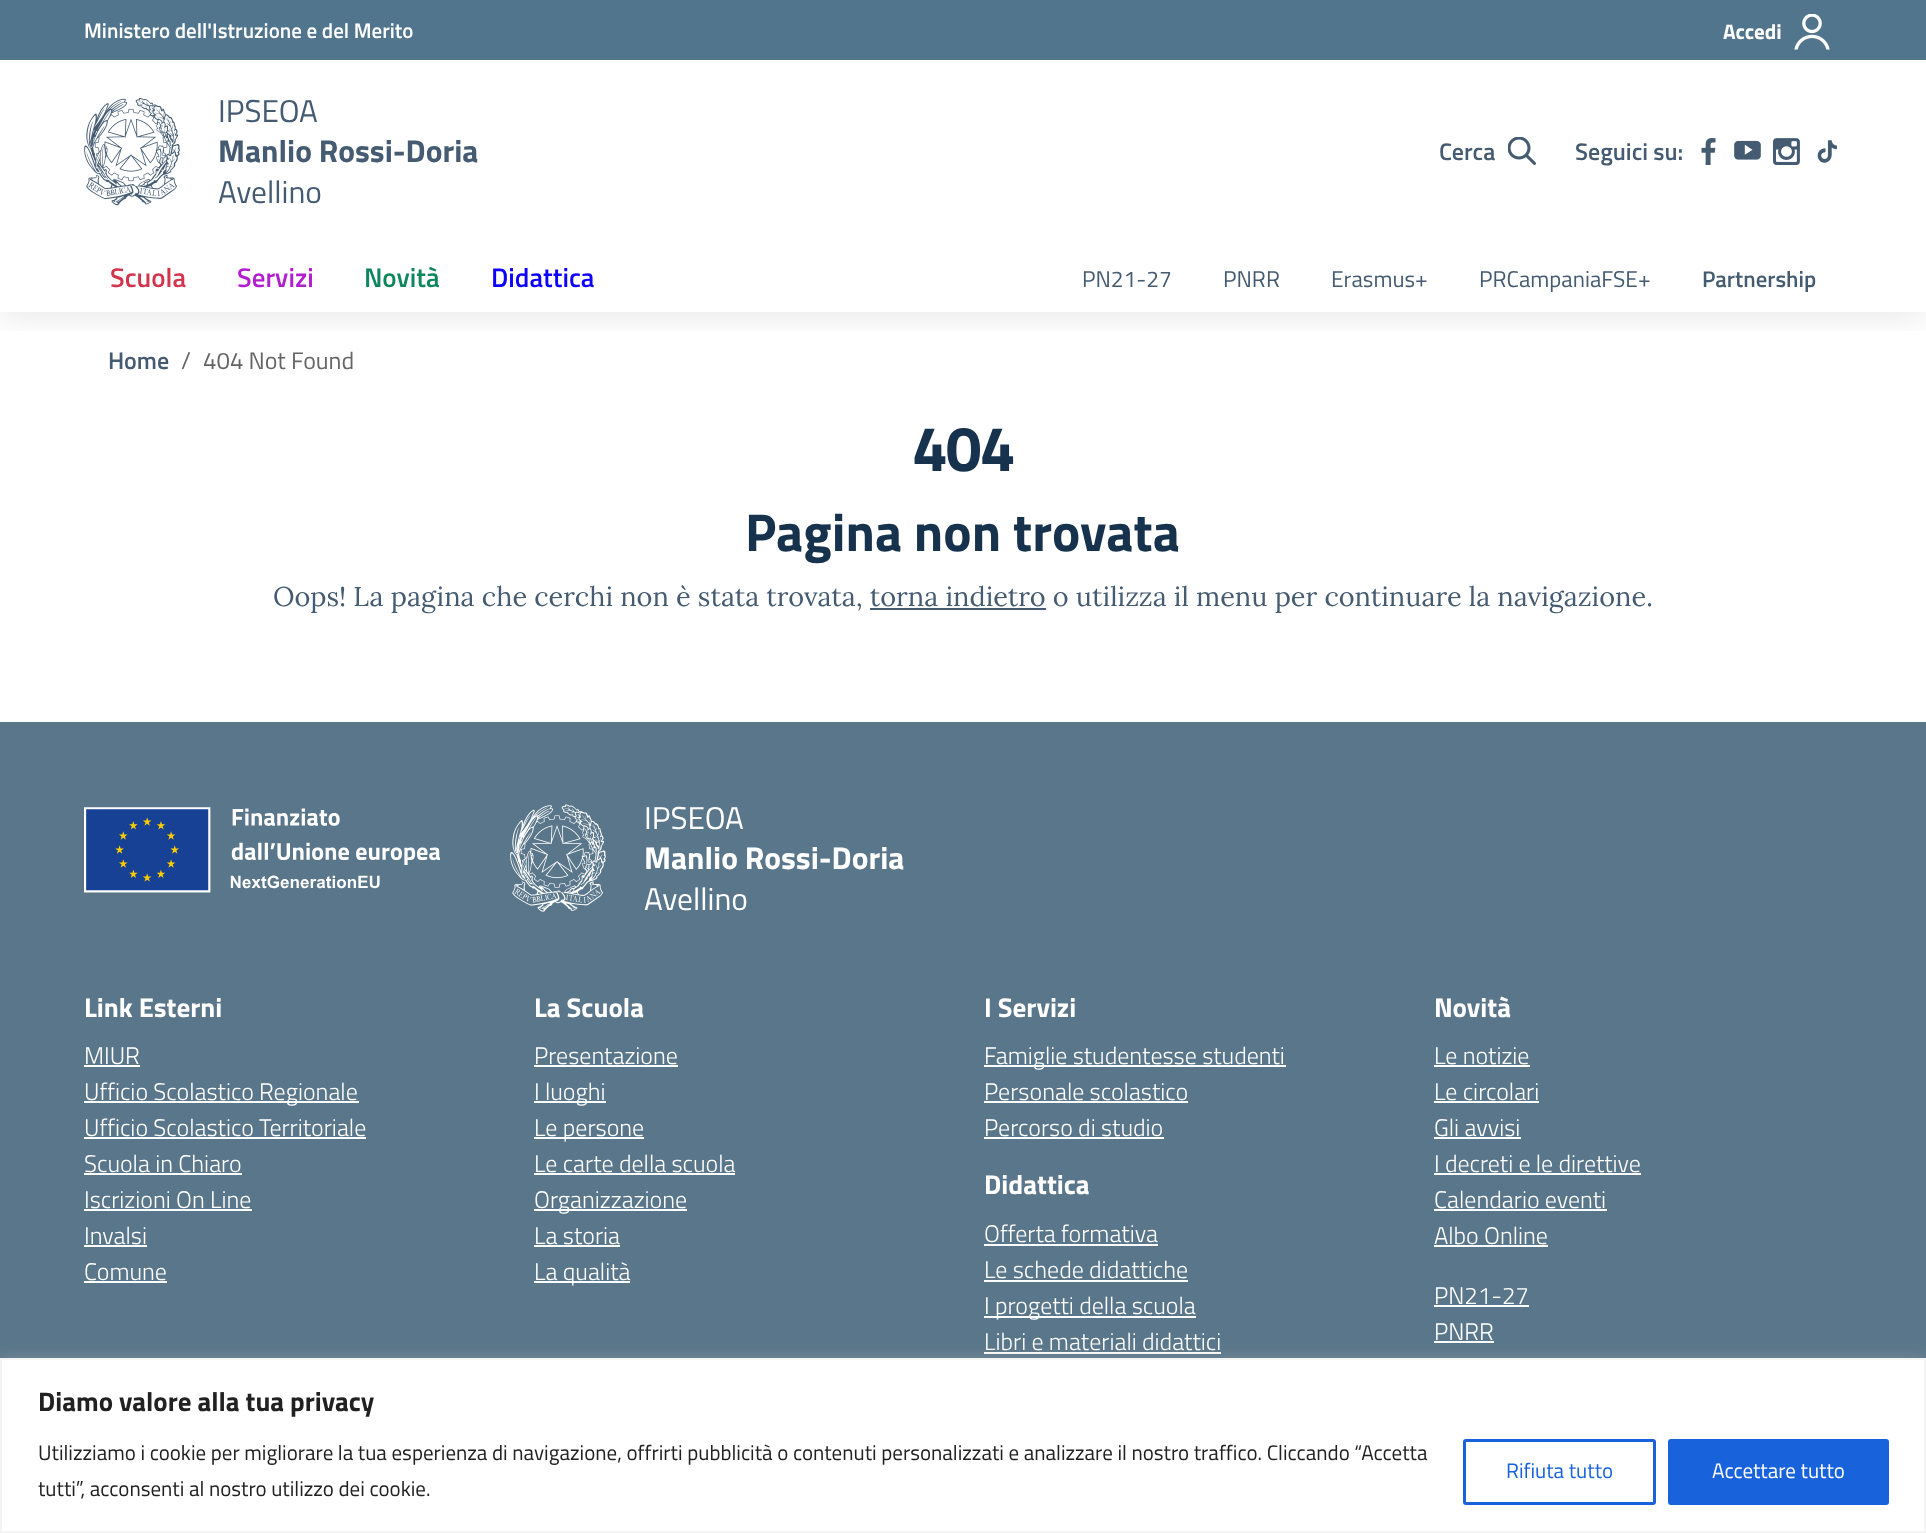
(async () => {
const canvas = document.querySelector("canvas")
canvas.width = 1926
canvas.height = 1533
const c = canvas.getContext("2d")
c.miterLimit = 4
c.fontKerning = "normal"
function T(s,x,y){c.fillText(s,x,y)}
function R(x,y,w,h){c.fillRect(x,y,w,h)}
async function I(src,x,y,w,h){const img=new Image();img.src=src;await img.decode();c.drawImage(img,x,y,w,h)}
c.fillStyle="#fff"
R(0,0,1926,1533)
c.save()
c.beginPath()
c.rect(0,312,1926,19)
c.clip()
c.fillStyle="#0000001a"
c.filter="blur(18.5px)"
c.beginPath()
c.rect(0,3,1926,312)
c.fill()
c.filter="none"
c.restore()
c.fillStyle="#51758d"
R(0,0,1926,60)
c.font="600 21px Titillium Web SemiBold"
c.fillStyle="#fff"
T("Ministero dell'Istruzione e del Merito",84,38)
c.font="bold 21px Titillium Web"
T("Accedi",1723,39)
await I("1.png",1794,14,36,36)
await I("2.png",84,98,96,108)
c.font="31.5px Titillium Web"
c.fillStyle="#455b71"
T("IPSEOA",218,122)
c.font="bold 31.5px Titillium Web"
T("Manlio Rossi-Doria",218,162)
c.font="31.5px Titillium Web"
T("Avellino",218,203)
c.font="600 24px Titillium Web SemiBold"
T("Cerca",1439,160)
await I("3.png",1508,137,28,28)
T("Seguici su:",1575,160)
await I("4.png",1701,138,15,27)
await I("5.png",1734,140,27,20)
await I("6.png",1773,138,27,27)
await I("7.png",1817,140,20,23)
c.font="600 27px Titillium Web SemiBold"
c.fillStyle="#d1344c"
T("Scuola",110,287)
c.fillStyle="#b21dd0"
T("Servizi",237,287)
c.fillStyle="#0e865c"
T("Novità",364,287)
c.fillStyle="#0d00ff"
T("Didattica",491,287)
c.font="22.75px Titillium Web"
c.fillStyle="#455b71"
T("PN21-27",1082,287)
T("PNRR",1223,287)
T("Erasmus+",1331,287)
T("PRCampaniaFSE+",1479,287)
c.font="600 22.75px Titillium Web SemiBold"
T("Partnership",1702,287)
c.font="600 24px Titillium Web SemiBold"
T("Home",108,369)
c.font="24px Titillium Web"
c.fillStyle="#656566"
T("/",181,369)
T("404 Not Found",203,369)
c.letterSpacing="-2px"
c.font="bold 64px Titillium Web"
c.fillStyle="#17324d"
T("404",912,471)
c.letterSpacing="0px"
c.font="bold 53.25px Titillium Web"
T("Pagina non trovata",745,551)
c.font="27.12px Lora"
c.fillStyle="#455b71"
T("Oops! La pagina che cerchi non è stata trovata, torna indietro o utilizza il menu per continuare la navigazione.",273,606)
R(870,608,176,2)
c.fillStyle="#5a768a"
R(0,722,1926,636)
await I("8.png",84,807,356,86)
await I("9.png",510,804,96,108)
c.font="31.5px Titillium Web"
c.fillStyle="#fff"
T("IPSEOA",644,829)
c.font="bold 31.5px Titillium Web"
T("Manlio Rossi-Doria",644,869)
c.font="31.5px Titillium Web"
T("Avellino",644,910)
c.font="bold 27.12px Titillium Web"
T("Link Esterni",84,1017)
c.font="300 24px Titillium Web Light"
T("MIUR",84,1064)
R(84,1065,56,2)
R(84,1101,275,2)
T("Ufficio Scolastico Regionale",84,1100)
T("Ufficio Scolastico Territoriale",84,1136)
R(84,1137,282,2)
T("Scuola in Chiaro",84,1172)
R(84,1173,158,2)
T("Iscrizioni On Line",84,1208)
R(84,1209,168,2)
T("Invalsi",84,1244)
R(84,1245,63,2)
T("Comune",84,1280)
R(84,1281,83,2)
c.font="bold 27.12px Titillium Web"
T("La Scuola",534,1017)
c.font="300 24px Titillium Web Light"
T("Presentazione",534,1064)
R(534,1065,144,2)
R(534,1101,72,2)
T("I luoghi",534,1100)
R(534,1137,110,2)
T("Le persone",534,1136)
T("Le carte della scuola",534,1172)
R(534,1173,201,2)
R(534,1209,153,2)
T("Organizzazione",534,1208)
T("La storia",534,1244)
R(534,1245,86,2)
R(534,1281,96,2)
T("La qualità",534,1280)
c.font="bold 27.12px Titillium Web"
T("I Servizi",984,1017)
R(984,1065,302,2)
c.font="300 24px Titillium Web Light"
T("Famiglie studentesse studenti",984,1064)
T("Personale scolastico",984,1100)
R(984,1101,204,2)
T("Percorso di studio",984,1136)
R(984,1137,180,2)
c.font="bold 27.12px Titillium Web"
T("Didattica",984,1194)
c.font="300 24px Titillium Web Light"
T("Offerta formativa",984,1242)
R(984,1244,174,2)
T("Le schede didattiche",984,1278)
R(984,1280,204,2)
R(984,1316,212,2)
T("I progetti della scuola",984,1314)
T("Libri e materiali didattici",984,1350)
R(984,1352,237,2)
c.font="bold 27.12px Titillium Web"
T("Novità",1434,1017)
c.font="300 24px Titillium Web Light"
T("Le notizie",1434,1064)
R(1434,1065,96,2)
T("Le circolari",1434,1100)
R(1434,1101,105,2)
T("Gli avvisi",1434,1136)
R(1434,1137,87,2)
T("I decreti e le direttive",1434,1172)
R(1434,1173,207,2)
T("Calendario eventi",1434,1208)
R(1434,1209,173,2)
T("Albo Online",1434,1244)
R(1434,1245,114,2)
T("PN21-27",1434,1304)
R(1434,1305,95,2)
T("PNRR",1434,1340)
R(1434,1341,60,2)
c.fillStyle="#acabab4d"
c.filter="blur(7.5px)"
c.beginPath()
c.rect(0,1356,1926,176)
c.fill()
c.filter="none"
c.fillStyle="#fff"
c.beginPath()
c.rect(1,1359,1924,173)
c.fill()
c.strokeStyle="#f4f4f4"
c.lineWidth=2
c.stroke()
c.font="bold 27px Titillium Web"
c.fillStyle="#212121"
T("Diamo valore alla tua privacy",38,1411)
c.font="21px Titillium Web"
T("Utilizziamo i cookie per migliorare la tua esperienza di navigazione, offrirti pubblicità o contenuti personalizzati e analizzare il nostro traffico. Cliccando “Accetta",38,1460)
T("tutti”, acconsenti al nostro utilizzo dei cookie.",38,1496)
c.beginPath()
c.roundRect(1464.5,1440.5,190,63,1.5)
c.strokeStyle="#1863dc"
c.lineWidth=3
c.stroke()
c.fillStyle="#1863dc"
T("Rifiuta tutto",1506,1478)
c.beginPath()
c.roundRect(1669.5,1440.5,218,63,1.5)
c.fill()
c.stroke()
c.fillStyle="#fff"
T("Accettare tutto",1712,1478)
})()
